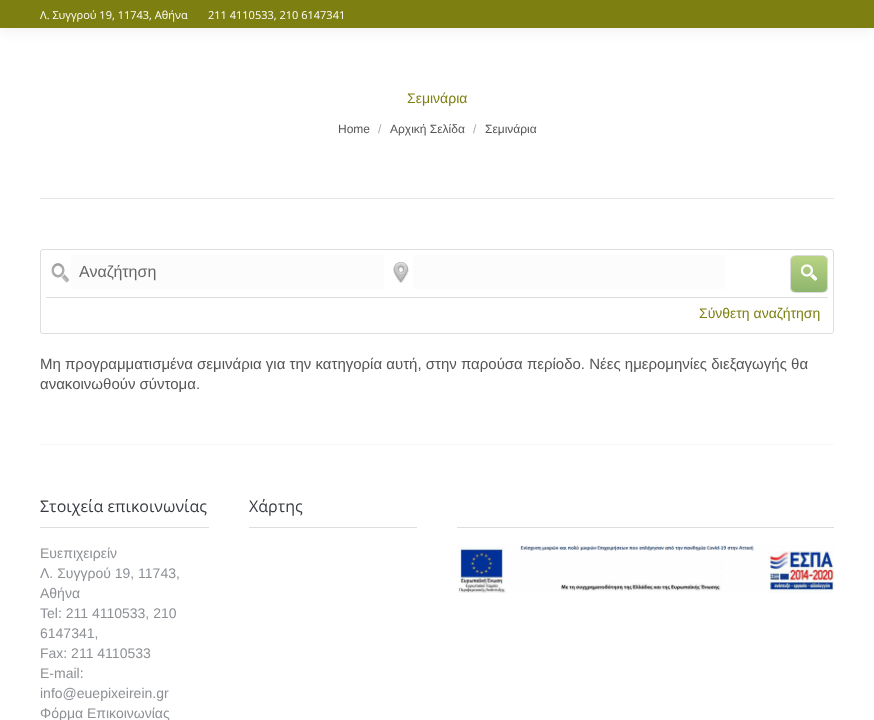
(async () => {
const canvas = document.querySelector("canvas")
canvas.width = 874
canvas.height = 720
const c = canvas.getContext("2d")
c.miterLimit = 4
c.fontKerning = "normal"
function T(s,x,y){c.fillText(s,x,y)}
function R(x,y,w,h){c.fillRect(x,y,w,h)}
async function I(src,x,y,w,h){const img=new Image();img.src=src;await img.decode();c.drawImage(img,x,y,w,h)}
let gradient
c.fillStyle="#fff"
R(0,0,874,720)
c.fillStyle="#00000012"
c.filter="blur(7.5px)"
c.beginPath()
c.rect(-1,-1,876,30)
c.fill()
c.filter="none"
c.fillStyle="#7d7f11"
R(0,0,874,28)
c.font="11px Open Sans"
c.fillStyle="#fff"
T("Λ. Συγγρού 19, 11743, Αθήνα",40,19)
T("211 4110533, 210 6147341",208,19)
c.fillStyle="#e6e6e6"
R(40,198,794,1)
c.font="14px Liberation Sans"
c.fillStyle="#7d7f11"
T("Σεμινάρια",407,103)
c.font="12px Liberation Sans"
c.fillStyle="#555"
T("Home",338,133)
c.fillStyle="#aaa"
T("/",378,133)
c.fillStyle="#555"
T("Αρχική Σελίδα",390,133)
c.fillStyle="#aaa"
T("/",473,133)
c.fillStyle="#555"
T("Σεμινάρια",485,133)
c.beginPath()
c.roundRect(40.5,249.5,793,84,2.5)
c.strokeStyle="#dedede"
c.stroke()
c.fillStyle="#dedede"
R(46,297,782,1)
await I("1.png",51,263,18,20)
c.fillStyle="#fcfcfc"
R(71,255,313,34)
c.font="16px Liberation Sans"
c.fillStyle="#666"
T("Αναζήτηση",79,277)
await I("2.png",393,262,16,21)
c.fillStyle="#fcfcfc"
R(413,255,312,34)
c.save()
c.beginPath()
c.roundRect(790,255,38,38,6)
c.clip()
gradient = c.createLinearGradient(791,256,791,292)
gradient.addColorStop(.05,"#b7d282")
gradient.addColorStop(1,"#8eb56d")
c.fillStyle = gradient
R(790,256,38,36)
c.restore()
c.beginPath()
c.roundRect(790.5,255.5,37,37,5.5)
c.strokeStyle="#dcdcdc"
c.stroke()
await I("3.png",801,264,16,17)
c.font="14px Liberation Sans"
c.fillStyle="#7d7f11"
T("Σύνθετη αναζήτηση",699,318)
c.font="15px Liberation Sans"
c.fillStyle="#555"
T("Μη προγραμματισμένα σεμινάρια για την κατηγορία αυτή, στην παρούσα περίοδο. Νέες ημερομηνίες διεξαγωγής θα",40,369)
T("ανακοινωθούν σύντομα.",40,389)
c.fillStyle="#f7f7f8"
R(40,444,794,1)
c.fillStyle="#ddd"
R(40,527,169,1)
c.font="16px Open Sans"
c.fillStyle="#373a41"
T("Στοιχεία επικοινωνίας",40,512)
c.font="14px Liberation Sans"
c.fillStyle="#8d9095"
T("Ευεπιχειρείν",40,558)
T("Λ. Συγγρού 19, 11743,",40,578)
T("Αθήνα",40,598)
T("Tel: 211 4110533, 210",40,618)
T("6147341,",40,638)
T("Fax: 211 4110533",40,658)
T("E-mail:",40,678)
T("info@euepixeirein.gr",40,698)
T("Φόρμα Επικοινωνίας",40,718)
c.fillStyle="#ddd"
R(249,527,168,1)
c.font="16px Open Sans"
c.fillStyle="#373a41"
T("Χάρτης",249,512)
c.fillStyle="#ddd"
R(457,527,377,1)
await I("4.png",458,545,376,48)
})()
